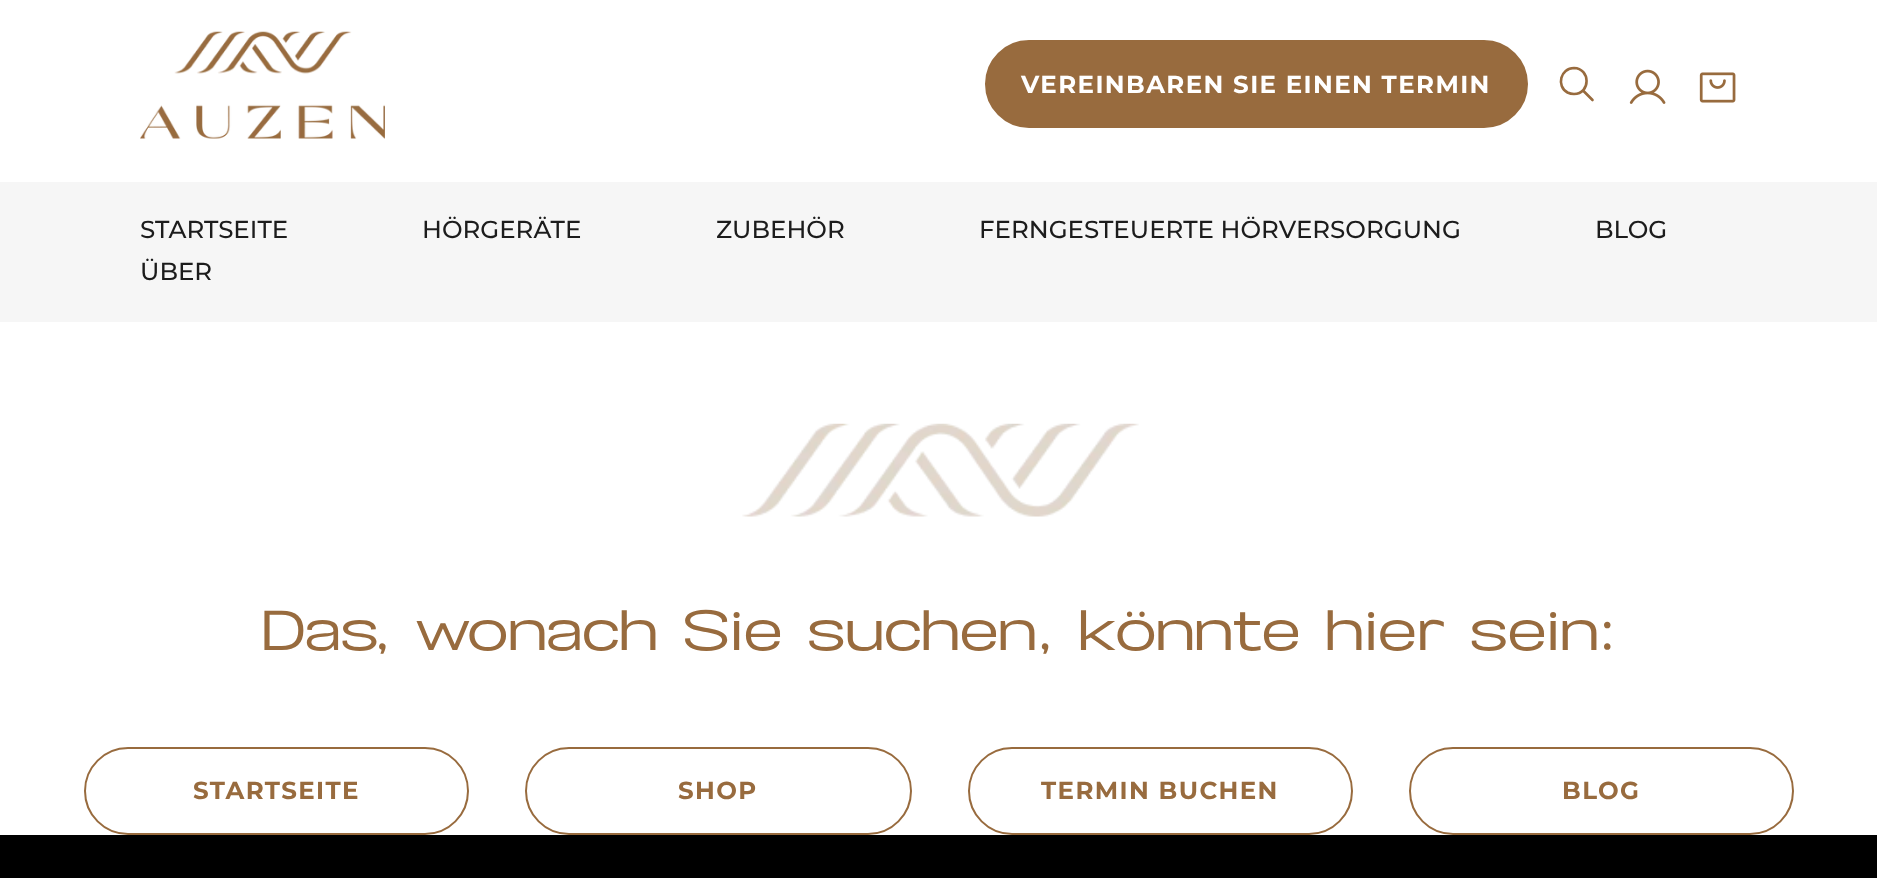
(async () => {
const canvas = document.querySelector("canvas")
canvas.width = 1877
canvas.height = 878
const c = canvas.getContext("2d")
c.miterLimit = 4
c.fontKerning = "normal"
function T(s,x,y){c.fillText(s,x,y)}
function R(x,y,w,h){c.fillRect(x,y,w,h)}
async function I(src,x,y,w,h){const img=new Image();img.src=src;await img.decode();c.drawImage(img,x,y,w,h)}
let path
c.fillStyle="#fff"
R(0,0,1877,878)
await I("1.png",140,31,245,108)
c.fillStyle="#986b3e"
c.beginPath()
c.roundRect(986,41,541,86,43)
c.fill()
c.strokeStyle="#986b3e"
c.lineWidth=2
c.stroke()
c.letterSpacing="1.4px"
c.font="bold 24.5px Montserrat"
c.fillStyle="#fff"
T("VEREINBAREN SIE EINEN TERMIN",1021,93)
path = new Path2D("M1574 68c-13.5 0-18 18-6.5 24.5c2 1 4 1.5 6.5 1.5c17-.5 16.5-25.5 0-26z")
c.lineWidth=2.6
c.stroke(path)
path = new Path2D("M1583.5 91l9 9")
c.lineCap="round"
c.stroke(path)
await I("2.png",1629,69,37,35)
await I("3.png",1699,72,37,31)
c.fillStyle="#f6f6f6"
R(0,182,1877,140)
c.letterSpacing="0px"
c.font="500 24.5px Montserrat"
c.fillStyle="#1c1c1c"
T("STARTSEITE",140,238)
T("HÖRGERÄTE",422,238)
T("ZUBEHÖR",716,238)
T("FERNGESTEUERTE HÖRVERSORGUNG",979,238)
T("BLOG",1595,238)
T("ÜBER",140,280)
await I("4.png",742,423,397,94)
c.font="500 49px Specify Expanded"
c.fillStyle="#986b3e"
T("Das, wonach Sie suchen, könnte hier sein:",262,650)
c.beginPath()
c.roundRect(85,748,383,86,43)
c.lineWidth=2
c.stroke()
c.letterSpacing="1.4px"
c.font="bold 24.5px Montserrat"
T("STARTSEITE",193,799)
c.beginPath()
c.roundRect(526,748,385,86,43)
c.stroke()
T("SHOP",678,799)
c.beginPath()
c.roundRect(969,748,383,86,43)
c.stroke()
T("TERMIN BUCHEN",1041,799)
c.beginPath()
c.roundRect(1410,748,383,86,43)
c.stroke()
T("BLOG",1562,799)
c.fillStyle="#000"
R(0,835,1877,43)
})()
